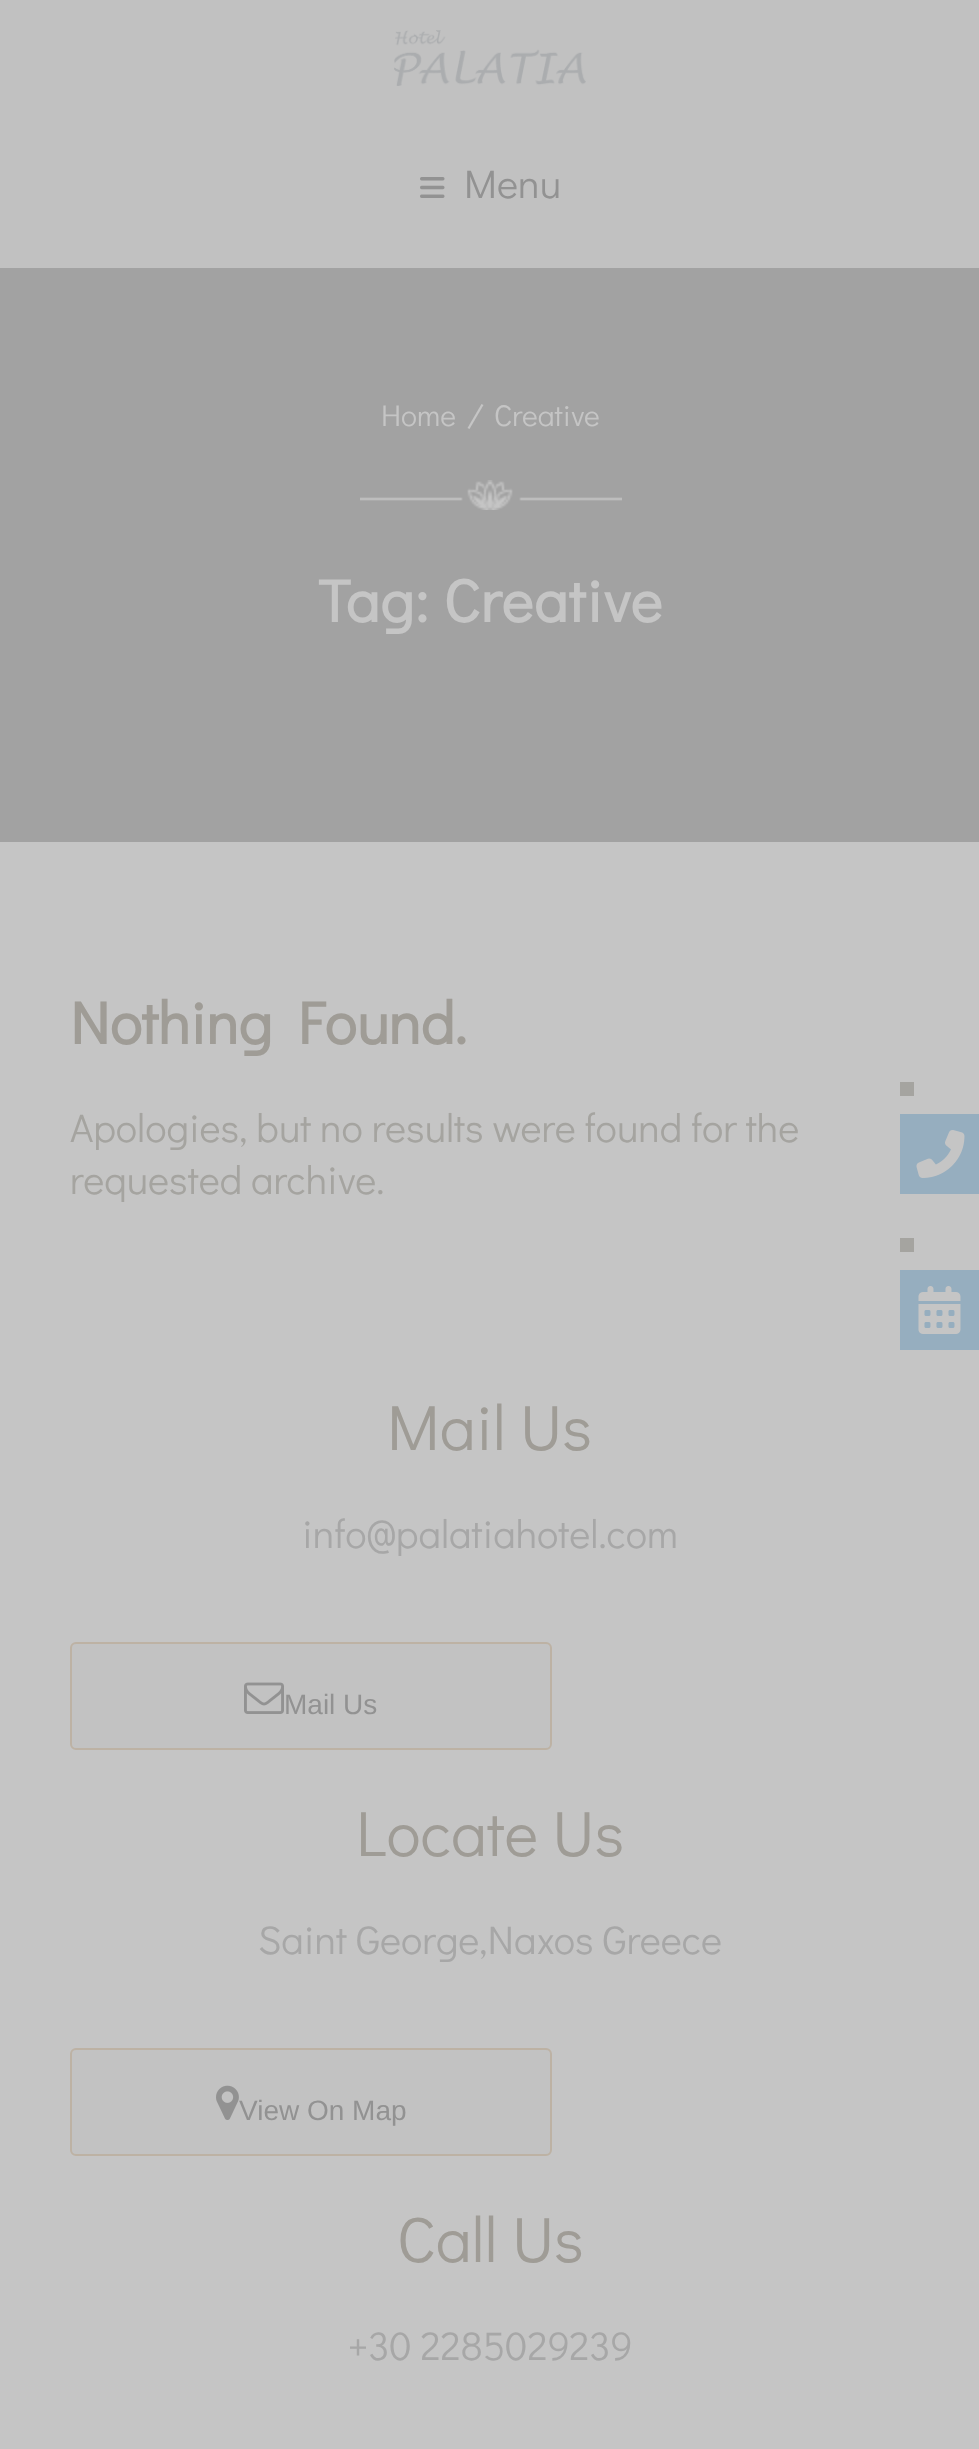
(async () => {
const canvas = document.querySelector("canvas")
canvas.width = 979
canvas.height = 2449
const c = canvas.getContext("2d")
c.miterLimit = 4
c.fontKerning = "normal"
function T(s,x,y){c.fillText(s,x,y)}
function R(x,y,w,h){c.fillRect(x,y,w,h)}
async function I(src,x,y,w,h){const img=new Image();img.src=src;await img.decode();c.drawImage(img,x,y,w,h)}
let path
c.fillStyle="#c5c5c5"
R(0,0,979,2449)
c.fillStyle="#c1c1c1"
R(0,0,979,268)
await I("1.png",394,30,192,56)
await I("2.png",420,177,25,21)
c.font="40px Didact Gothic"
c.fillStyle="#929292"
T("Menu",464,198)
c.fillStyle="#a2a2a2"
R(0,268,979,574)
c.font="30px Didact Gothic"
c.fillStyle="#c5c5c5"
T("Home",381,426)
path = new Path2D("M481.5 404l2 1l-14 24l-2-1z")
c.fill(path)
T("Creative",494,426)
await I("3.png",360,480,262,30)
c.letterSpacing="1px"
c.font="bold 60px Didact Gothic"
T("Tag: Creative",318,622)
c.letterSpacing="0px"
c.fillStyle="#9f9c96"
T("Nothing Found.",70,1044)
c.font="40px Didact Gothic"
c.fillStyle="#a5a4a0"
T("Apologies, but no results were found for the",70,1142)
T("requested archive.",70,1194)
c.font="64px Didact Gothic"
c.fillStyle="#9f9c96"
T("Mail Us",387,1450)
c.font="40px Didact Gothic"
c.fillStyle="#a7a7a7"
T("info@palatiahotel.com",302,1548)
c.fillStyle="#c2c2c2"
c.beginPath()
c.roundRect(71,1643,480,106,5)
c.fill()
c.strokeStyle="#bdb2a4"
c.lineWidth=2
c.stroke()
await I("4.png",244,1682,40,32)
c.font="28px Liberation Sans"
c.fillStyle="#929292"
T("Mail Us",284,1714)
c.font="64px Didact Gothic"
c.fillStyle="#9f9c96"
T("Locate Us",356,1856)
c.font="40px Didact Gothic"
c.fillStyle="#a7a7a7"
T("Saint George,Naxos Greece",258,1954)
c.fillStyle="#c2c2c2"
c.beginPath()
c.roundRect(71,2049,480,106,5)
c.fill()
c.stroke()
await I("5.png",216,2085,23,35)
c.font="28px Liberation Sans"
c.fillStyle="#929292"
T("View On Map",239,2120)
c.font="64px Didact Gothic"
c.fillStyle="#9f9c96"
T("Call Us",397,2262)
c.font="40px Didact Gothic"
c.fillStyle="#a7a7a7"
T("+30 2285029239",348,2360)
c.fillStyle="#a5a4a0"
R(900,1082,14,14)
c.fillStyle="#96aebf"
R(900,1114,79,80)
await I("6.png",916,1130,49,48)
c.fillStyle="#a5a4a0"
R(900,1238,14,14)
c.fillStyle="#96aebf"
R(900,1270,79,80)
await I("7.png",918,1286,43,48)
})()
